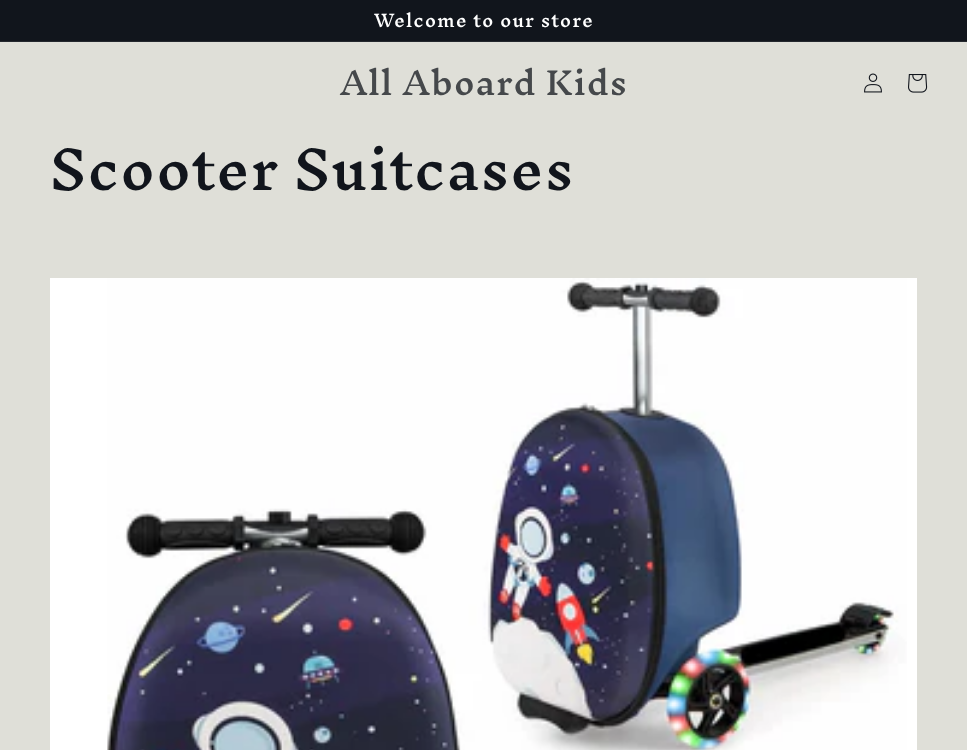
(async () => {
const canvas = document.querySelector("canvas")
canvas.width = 967
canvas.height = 750
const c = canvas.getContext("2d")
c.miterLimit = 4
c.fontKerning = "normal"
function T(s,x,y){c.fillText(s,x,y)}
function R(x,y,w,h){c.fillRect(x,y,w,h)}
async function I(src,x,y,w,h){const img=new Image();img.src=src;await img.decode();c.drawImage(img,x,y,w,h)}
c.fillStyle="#dfdfd8"
R(0,0,967,750)
c.fillStyle="#11151c"
R(0,0,967,41)
c.fillStyle="#24282e"
R(0,41,967,1)
c.letterSpacing="1px"
c.font="500 16.9px Inknut Antiqua"
c.fillStyle="#fff"
T("Welcome to our store",374,27)
c.letterSpacing="0.75px"
c.font="500 31.25px Inknut Antiqua"
c.fillStyle="#45484b"
T("All Aboard Kids",340,95)
await I("1.png",864,73,18,20)
await I("2.png",908,74,20,19)
c.font="500 52px Inknut Antiqua"
c.fillStyle="#11151c"
T("Scooter Suitcases",50,190)
c.fillStyle="#fff"
R(50,278,867,472)
await I("3.png",107,278,800,472)
})()
